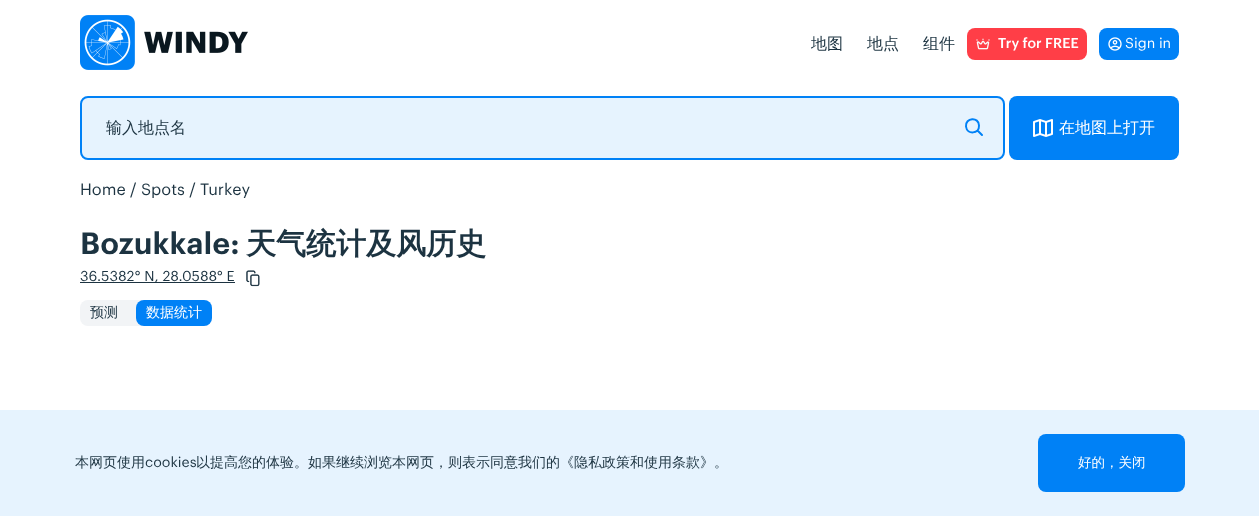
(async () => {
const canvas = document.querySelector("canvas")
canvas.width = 1259
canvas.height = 516
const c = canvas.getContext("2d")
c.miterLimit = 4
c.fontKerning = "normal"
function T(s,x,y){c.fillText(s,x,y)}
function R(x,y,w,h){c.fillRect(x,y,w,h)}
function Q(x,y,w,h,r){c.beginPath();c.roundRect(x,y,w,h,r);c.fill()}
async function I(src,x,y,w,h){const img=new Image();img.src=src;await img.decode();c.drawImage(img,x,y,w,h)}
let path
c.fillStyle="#fff"
R(0,0,1259,516)
await I("1.png",80,15,168,55)
c.font="500 16px WenQuanYi Zen Hei"
c.fillStyle="#1c3341"
T("地图",811,49)
T("地点",867,49)
T("组件",923,49)
c.fillStyle="#ff3e47"
Q(967,28,120,32,8)
await I("2.png",976,38,14,12)
c.font="500 14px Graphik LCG"
c.fillStyle="#fff"
T("Try for FREE",998,48)
c.fillStyle="#0081f6"
Q(1099,28,80,32,8)
await I("3.png",1108,37,14,14)
c.font="14px Graphik LCG"
c.fillStyle="#fff"
T("Sign in",1125,48)
c.fillStyle="#e6f3fe"
c.beginPath()
c.roundRect(81,97,923,62,7)
c.fill()
c.strokeStyle="#0081f6"
c.lineWidth=2
c.stroke()
c.font="500 16px WenQuanYi Zen Hei"
c.fillStyle="#1c3341"
T("输入地点名",106,133)
path = new Path2D("M977.5 130.5l4.5 4.5m-3-9.5c.5 8.5-12 9.5-13 1c-1-9 13-10 13-1")
c.lineCap="round"
c.lineJoin="round"
c.stroke(path)
c.fillStyle="#0081f6"
Q(1009,96,170,64,8)
await I("4.png",1033,119,20,18)
c.fillStyle="#fff"
T("在地图上打开",1059,133)
c.font="16px Graphik LCG"
c.fillStyle="#1c3341"
T("Home / Spots / Turkey",80,195)
c.font="600 30px Graphik LCG"
T("Bozukkale:",80,254)
c.font="bold 30px WenQuanYi Zen Hei"
T("天气统计及风历史",246,254)
R(80,282,155,1)
c.font="14px Graphik LCG"
T("36.5382° N, 28.0588° E",80,281)
await I("5.png",246,270,14,17)
c.fillStyle="#f2f4f6"
Q(80,300,132,26,8)
c.font="500 14px WenQuanYi Zen Hei"
c.fillStyle="#1c3341"
T("预测",90,317)
c.fillStyle="#0081f6"
Q(136,300,76,26,8)
c.fillStyle="#fff"
T("数据统计",146,317)
c.fillStyle="#e6f3fe"
R(0,410,1259,106)
c.fillStyle="#1c3341"
T("本网页使用",75,467)
c.font="14px Graphik LCG"
T("cookies",145,467)
c.font="500 14px WenQuanYi Zen Hei"
T("以提高您的体验。如果继续浏览本网页，则表示同意我们的《隐私政策和使用条款》。",196,467)
c.fillStyle="#0081f6"
Q(1038,434,147,58,8)
c.font="500 13.5px WenQuanYi Zen Hei"
c.fillStyle="#fff"
T("好的，关闭",1078,467)
})()
